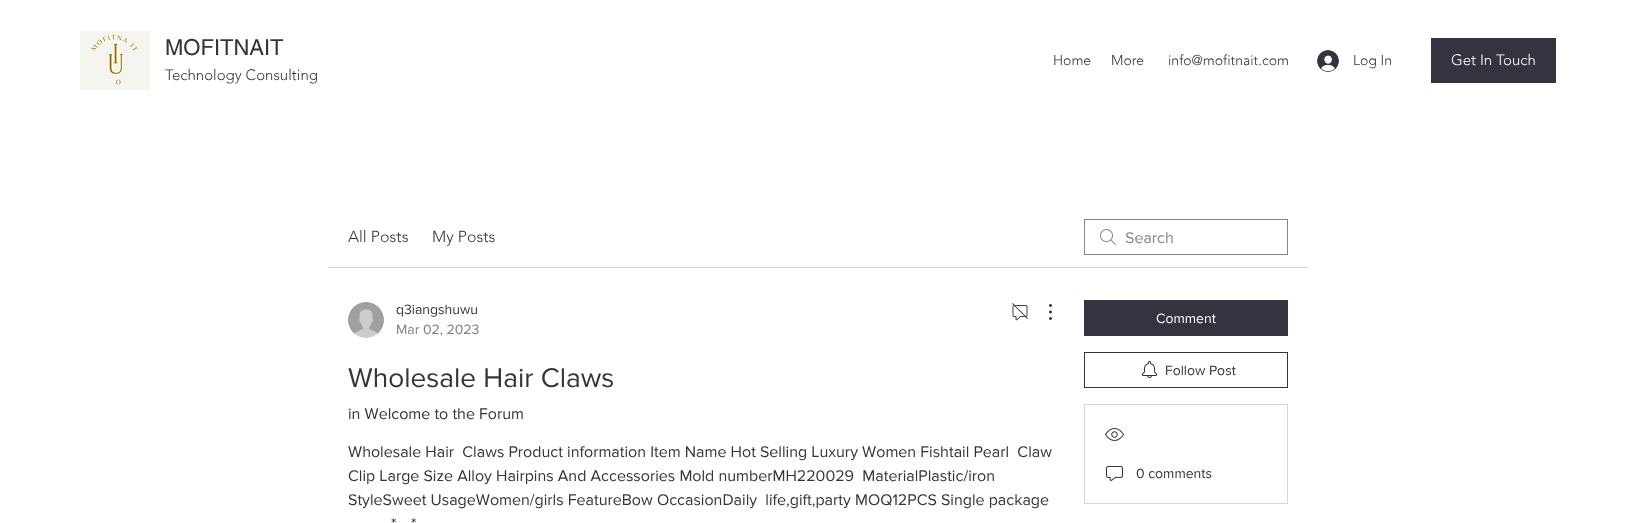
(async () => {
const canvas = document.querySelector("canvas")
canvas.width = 1636
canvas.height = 523
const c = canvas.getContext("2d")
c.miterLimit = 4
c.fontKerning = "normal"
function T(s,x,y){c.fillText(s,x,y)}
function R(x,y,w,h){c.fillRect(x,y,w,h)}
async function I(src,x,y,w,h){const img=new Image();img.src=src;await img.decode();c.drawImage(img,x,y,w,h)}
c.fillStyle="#fff"
R(0,0,1636,523)
await I("1.png",80,31,70,59)
c.font="22px helvetica"
c.fillStyle="#33343f"
T("MOFITNAIT",165,55)
c.font="300 15px 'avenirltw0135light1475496'"
T("Technology Consulting",165,80)
c.font="300 14px 'avenirltw0135light1475496'"
T("Home",1053,65)
T("More",1111,65)
T("info@mofitnait.com",1168,65)
await I("2.png",1317,50,22,22)
T("Log In",1353,65)
R(1431,38,125,45)
c.font="300 15px 'avenirltw0135light1475496'"
c.fillStyle="#fff"
T("Get In Touch",1451,65)
c.fillStyle="#d6d6d9"
R(328,267,980,1)
c.font="300 16px 'avenirltw0135light1475496'"
c.fillStyle="#33343f"
T("All Posts",348,242)
T("My Posts",432,242)
await I("3.png",1100,229,16,16)
c.strokeStyle="#85858c"
c.strokeRect(1084.5,219.5,203,35)
c.font="16px 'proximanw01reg'"
c.fillStyle="#85858c"
T("Search",1125,243)
await I("4.png",348,302,36,36)
c.font="14px 'proximanw01reg'"
c.fillStyle="#33343f"
T("q3iangshuwu",396,314)
c.fillStyle="#7c7d84"
T("Mar 02, 2023",396,334)
await I("5.png",1012,303,16,18)
await I("6.png",1049,304,3,16)
c.font="28px 'proximanw01reg'"
c.fillStyle="#33343f"
T("Wholesale Hair Claws",348,387)
c.font="16px 'proximanw01reg'"
T("in Welcome to the Forum",348,419)
T("Wholesale Hair  Claws Product information Item Name Hot Selling Luxury Women Fishtail Pearl  Claw",348,457)
T("Clip Large Size Alloy Hairpins And Accessories Mold numberMH220029  MaterialPlastic/iron",348,481)
T("StyleSweet UsageWomen/girls FeatureBow OccasionDaily  life,gift,party MOQ12PCS Single package",348,505)
T("*",391,529)
T("*",411,529)
R(1084,300,204,36)
c.font="14px 'proximanw01reg'"
c.fillStyle="#fff"
T("Comment",1156,323)
c.strokeStyle="#33343f"
c.strokeRect(1084.5,352.5,203,35)
await I("7.png",1142,361,15,17)
c.fillStyle="#33343f"
T("Follow Post",1165,375)
c.strokeStyle="#d6d6d9"
c.strokeRect(1084.5,404.5,203,99)
await I("8.png",1105,428,19,13)
await I("9.png",1106,466,17,15)
T("0 comments",1136,478)
})()
